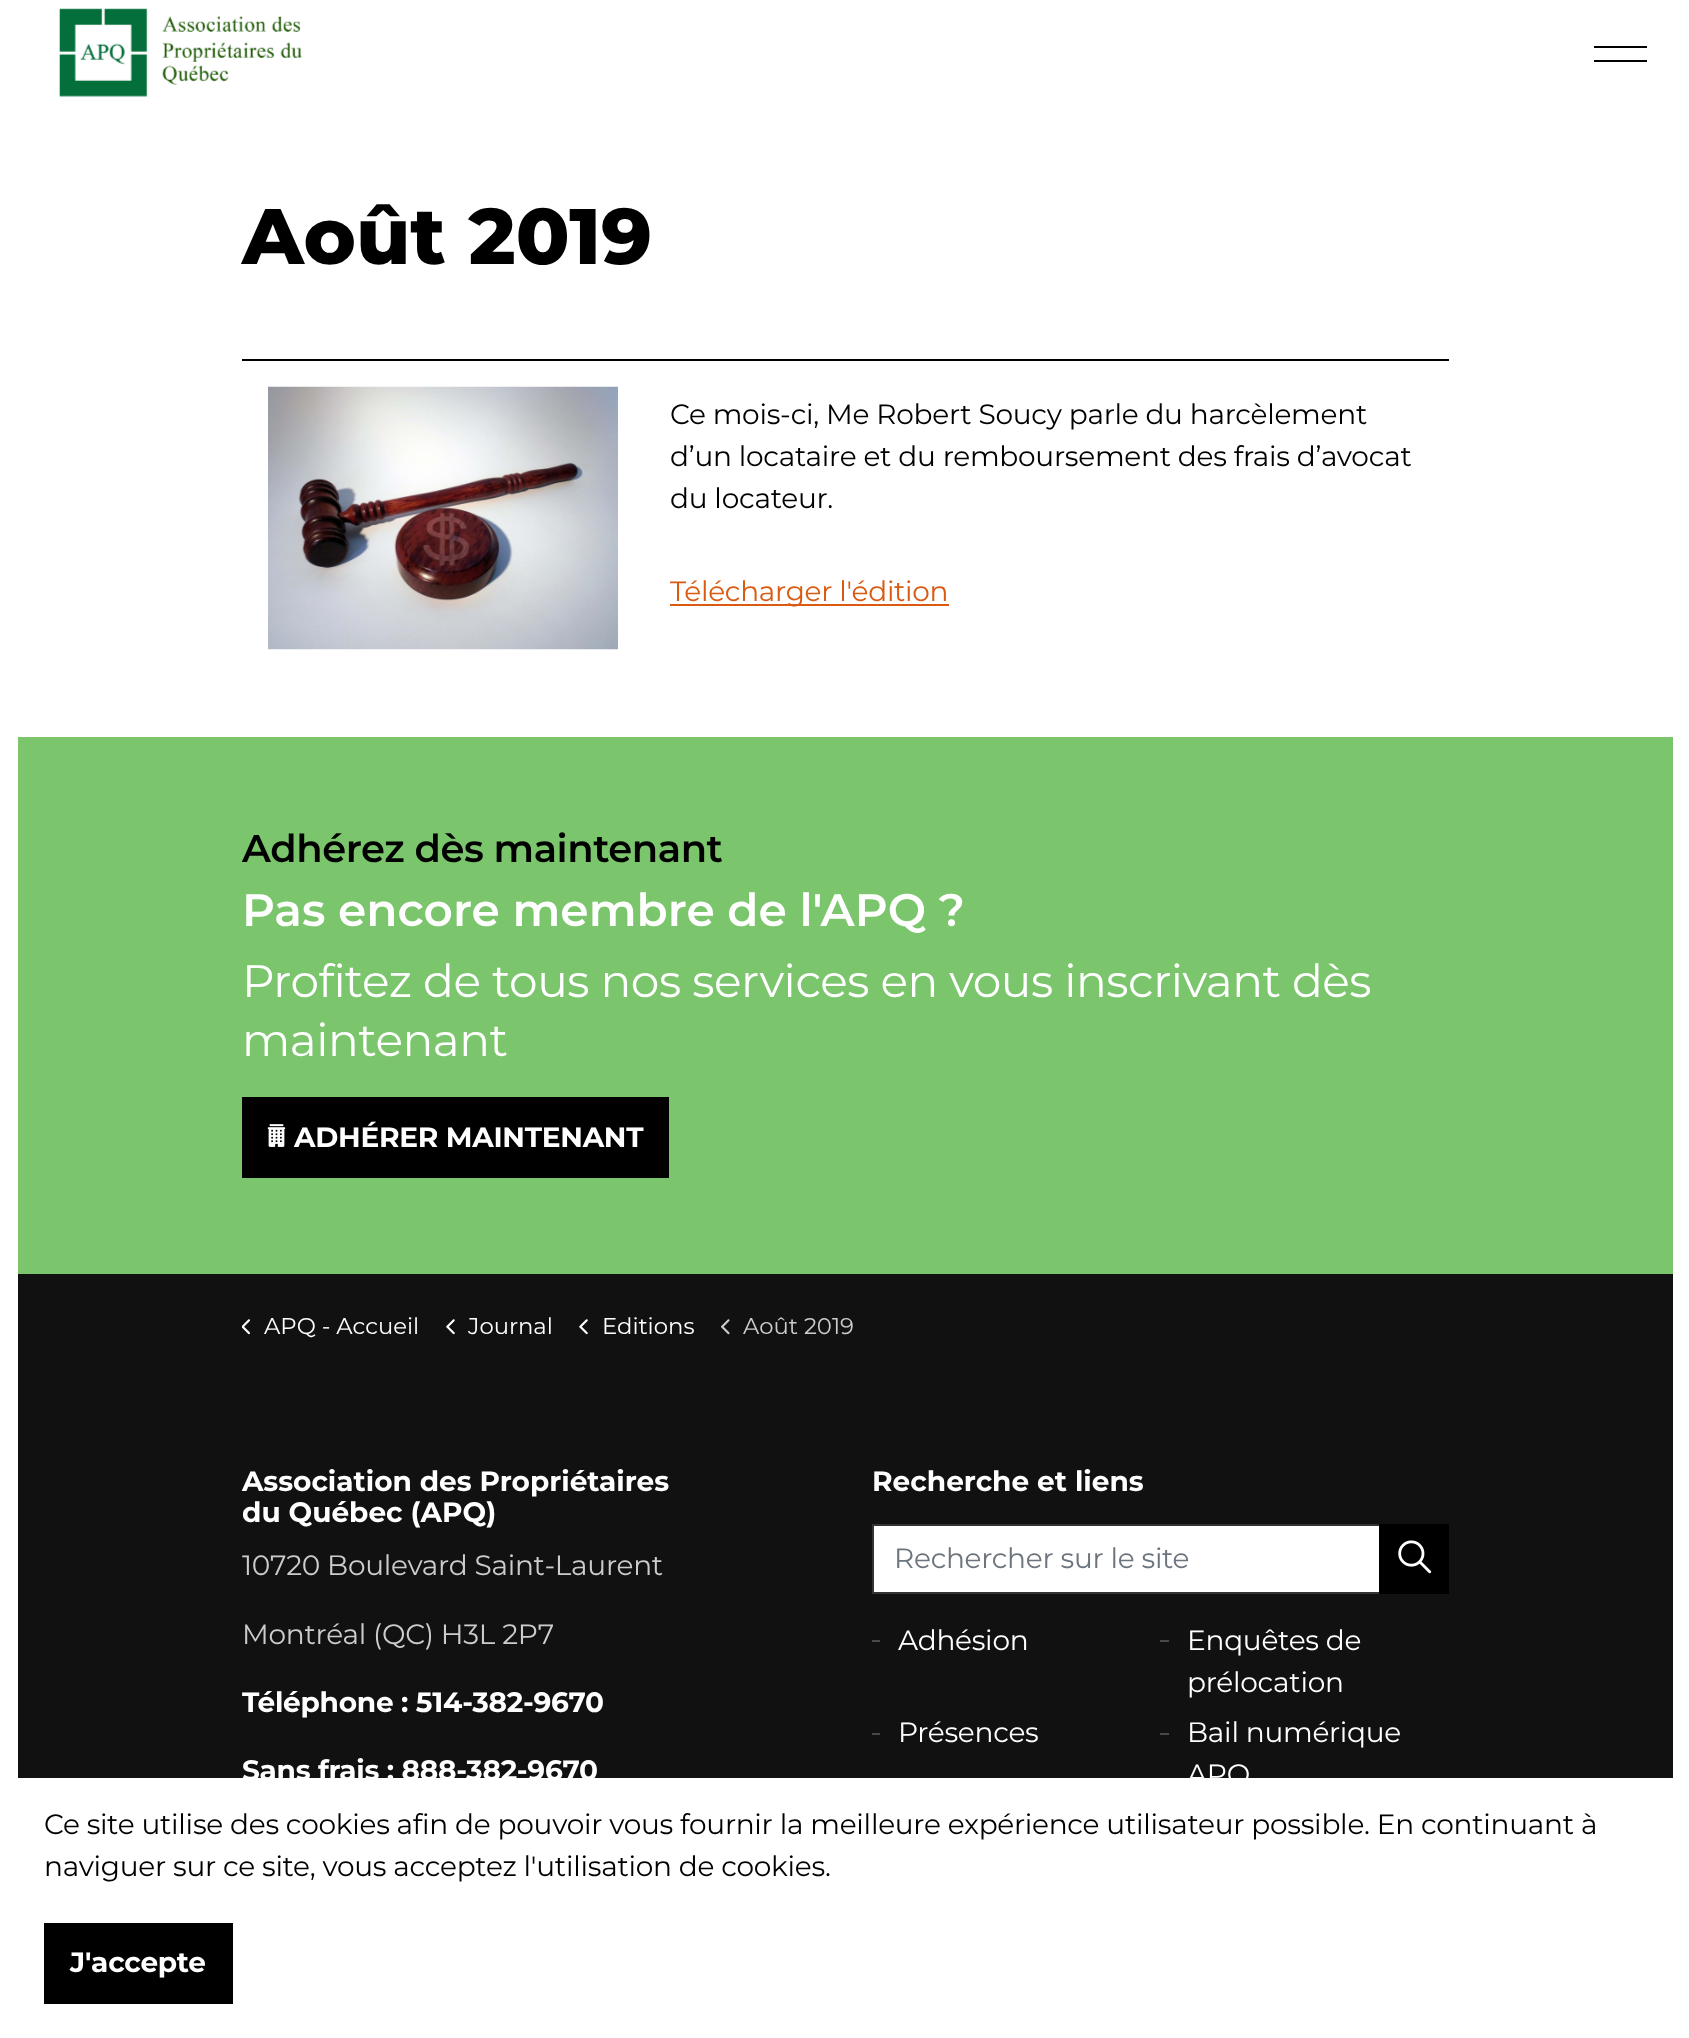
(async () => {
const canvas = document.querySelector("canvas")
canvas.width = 1689
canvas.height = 2038
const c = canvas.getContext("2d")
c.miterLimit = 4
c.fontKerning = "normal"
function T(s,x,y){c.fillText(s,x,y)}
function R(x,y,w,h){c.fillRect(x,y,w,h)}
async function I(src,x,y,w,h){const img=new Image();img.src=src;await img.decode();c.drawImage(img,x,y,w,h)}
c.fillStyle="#fff"
R(0,0,1689,2038)
await I("1.png",59,8,244,89)
c.fillStyle="#000"
R(1594,46,53,2)
R(1594,60,53,2)
c.font="800 78.75px Montserrat"
T("Août 2019",242,264)
R(242,359,1207,2)
await I("2.png",268,386,350,264)
c.letterSpacing="-0.26px"
c.font="28px Montserrat"
T("Ce mois-ci, Me Robert Soucy parle du harcèlement",670,424)
T("d’un locataire et du remboursement des frais d’avocat",670,466)
T("du locateur.",670,508)
c.fillStyle="#d95a11"
R(670,604,279,2)
T("Télécharger l'édition",670,601)
c.fillStyle="#7bc56c"
R(18,737,1655,537)
c.letterSpacing="-0.45px"
c.font="600 38.5px Montserrat"
c.fillStyle="#000"
T("Adhérez dès maintenant",242,862)
c.letterSpacing="0px"
c.font="600 45.5px Montserrat"
c.fillStyle="#fff"
T("Pas encore membre de l'APQ ?",242,926)
c.letterSpacing="-0.45px"
c.font="45.5px Montserrat"
T("Profitez de tous nos services en vous inscrivant dès",242,997)
T("maintenant",242,1056)
c.fillStyle="#000"
R(242,1097,427,81)
await I("3.png",267,1124,19,23)
c.letterSpacing="-0.26px"
c.font="bold 28px Montserrat"
c.fillStyle="#fff"
T("ADHÉRER MAINTENANT",294,1147)
c.fillStyle="#111"
R(18,1274,1655,504)
await I("4.png",242,1319,8,16)
c.letterSpacing="0px"
c.font="22.75px Montserrat"
c.fillStyle="#fff"
T("APQ - Accueil",264,1334)
await I("5.png",446,1319,9,16)
T("Journal",468,1334)
await I("5.png",579,1319,9,16)
T("Editions",602,1334)
await I("6.png",721,1319,9,16)
c.fillStyle="#ccc"
T("Août 2019",743,1334)
c.font="bold 28px Montserrat"
c.fillStyle="#fff"
T("Association des Propriétaires",242,1491)
T("du Québec (APQ)",242,1522)
c.letterSpacing="-0.26px"
c.font="28px Montserrat"
c.fillStyle="#ccc"
T("10720 Boulevard Saint-Laurent",242,1575)
T("Montréal (QC) H3L 2P7",242,1644)
c.font="bold 28px Montserrat"
c.fillStyle="#fff"
T("Téléphone : 514-382-9670",242,1712)
T("Sans frais : 888-382-9670",242,1780)
c.letterSpacing="0px"
T("Recherche et liens",872,1491)
R(874,1526,505,66)
c.strokeStyle="#333"
c.lineWidth=2
c.strokeRect(873,1525,575,68)
c.letterSpacing="-0.26px"
c.font="28px Montserrat"
c.fillStyle="#6c757d"
T("Rechercher sur le site",894,1568)
c.fillStyle="#000"
R(1379,1524,70,70)
await I("7.png",1398,1540,34,34)
c.fillStyle="#494949"
R(872,1640,8,2)
c.fillStyle="#fff"
T("Adhésion",898,1650)
c.fillStyle="#494949"
R(1160,1640,9,2)
c.fillStyle="#fff"
T("Enquêtes de",1187,1650)
T("prélocation",1187,1692)
c.fillStyle="#494949"
R(872,1733,8,2)
c.fillStyle="#fff"
T("Présences",898,1742)
c.fillStyle="#494949"
R(1160,1733,9,2)
c.fillStyle="#fff"
T("Bail numérique",1187,1742)
T("APQ",1187,1784)
c.fillStyle="#000"
T("Ce site utilise des cookies afin de pouvoir vous fournir la meilleure expérience utilisateur possible. En continuant à",44,1834)
T("naviguer sur ce site, vous acceptez l'utilisation de cookies.",44,1876)
R(44,1923,189,81)
c.font="bold 28px Montserrat"
c.fillStyle="#fff"
T("J'accepte",70,1972)
})()
